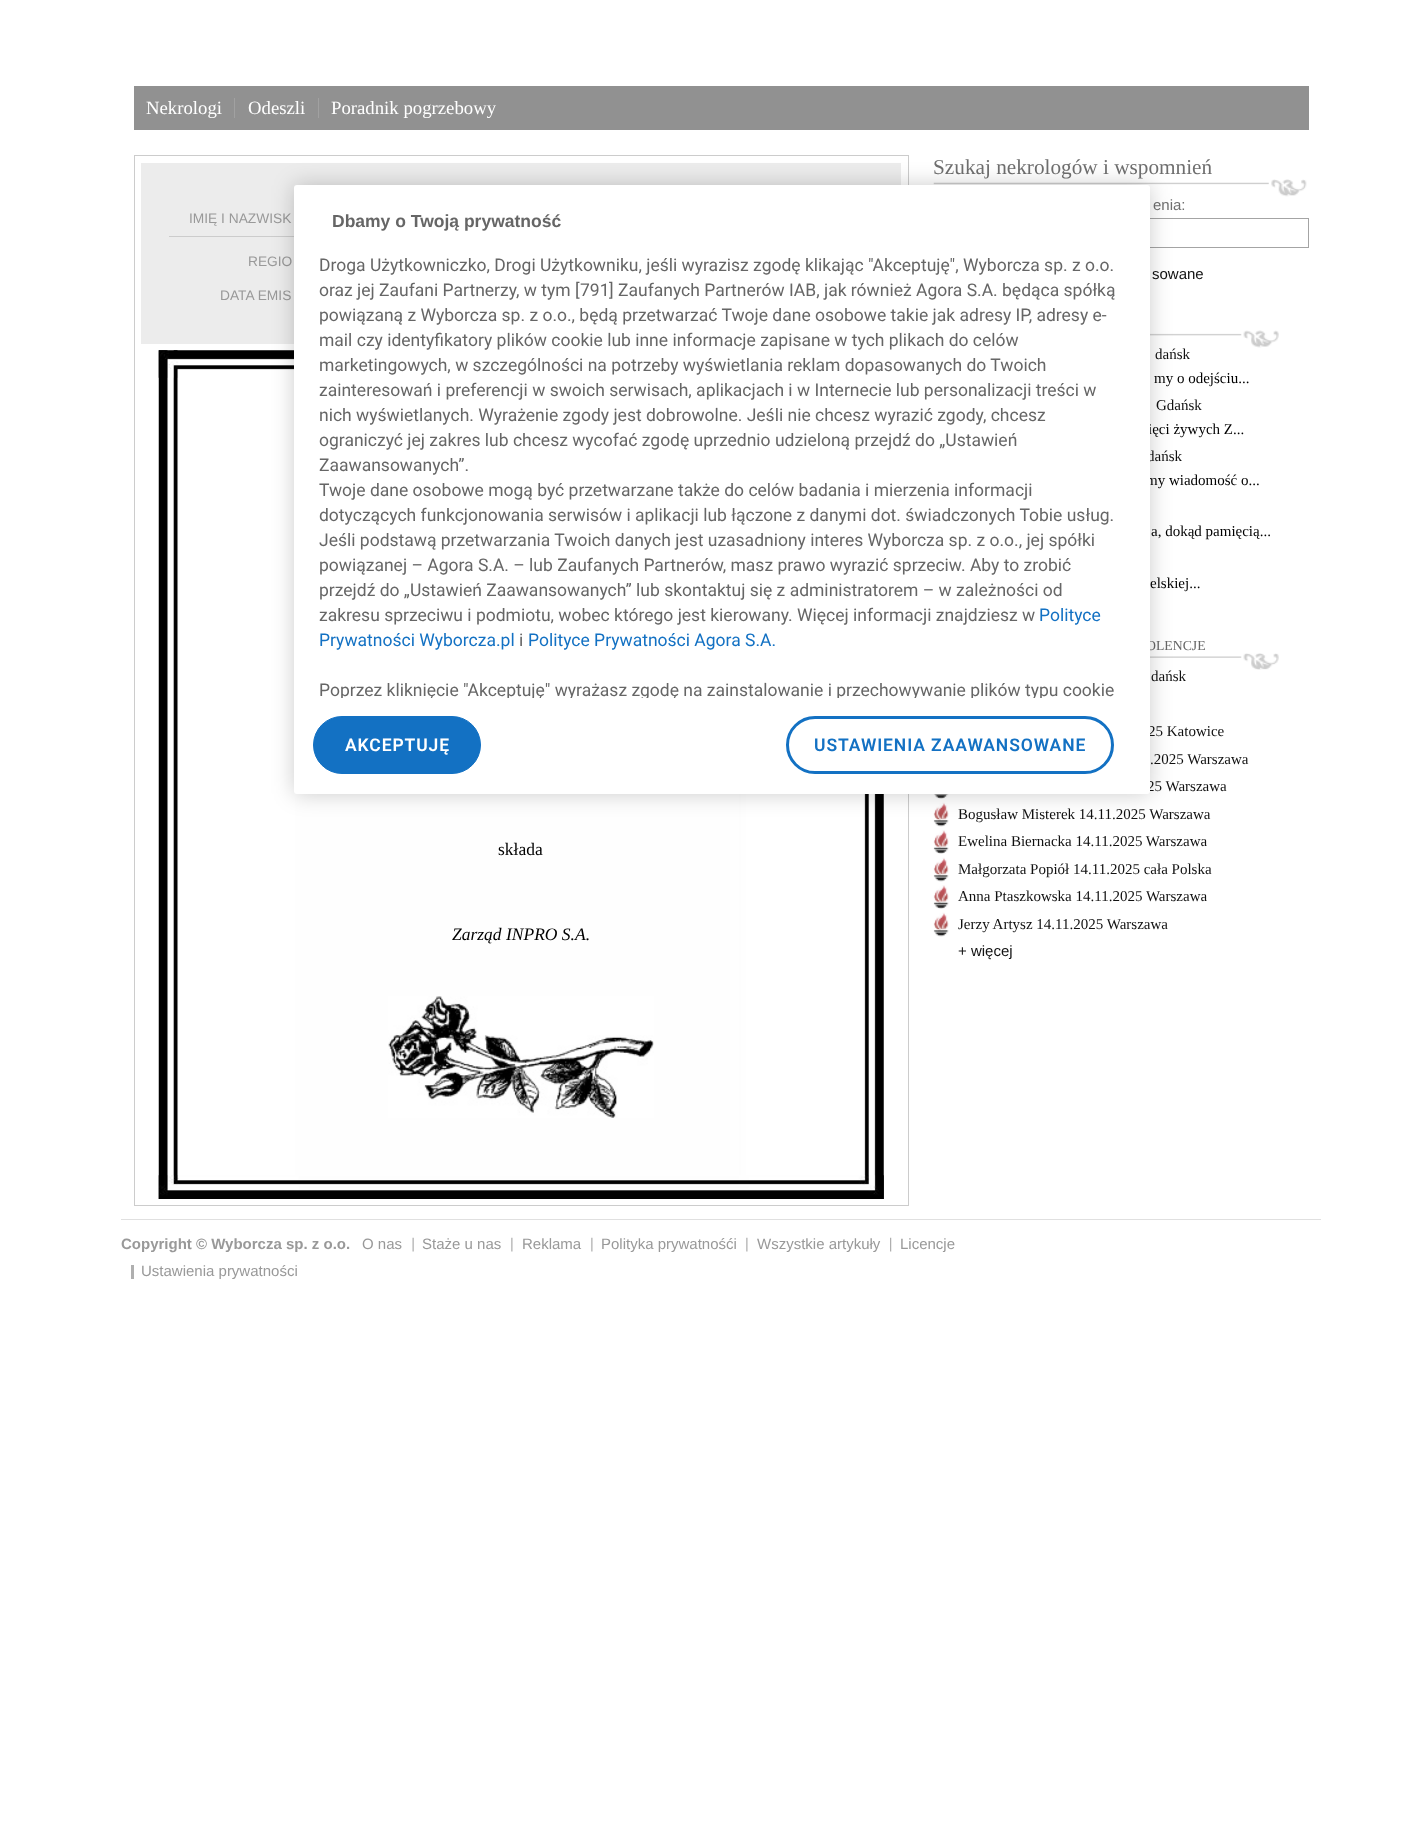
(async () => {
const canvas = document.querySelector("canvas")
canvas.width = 1426
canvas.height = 1843
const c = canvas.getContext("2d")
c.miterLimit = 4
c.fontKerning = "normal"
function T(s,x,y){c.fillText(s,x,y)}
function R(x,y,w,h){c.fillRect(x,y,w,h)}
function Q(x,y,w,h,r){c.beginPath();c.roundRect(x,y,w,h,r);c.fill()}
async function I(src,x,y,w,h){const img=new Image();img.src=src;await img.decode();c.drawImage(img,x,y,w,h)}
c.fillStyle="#fff"
R(0,0,1426,1843)
c.fillStyle="#919191"
R(134,86,1175,44)
c.font="18.75px Liberation Serif"
c.fillStyle="#fff"
T("Nekrologi",146,114)
T("Odeszli",248,114)
c.fillStyle="#a1a1a1"
R(234,98,1,20)
c.fillStyle="#fff"
T("Poradnik pogrzebowy",331,114)
c.fillStyle="#a1a1a1"
R(318,98,1,20)
c.strokeStyle="#ccc"
c.strokeRect(134.5,155.5,774,1050)
c.fillStyle="#ececec"
R(141,163,760,181)
c.fillStyle="#ccc"
R(169,236,125,1)
c.font="13.75px Liberation Sans"
c.fillStyle="#999"
T("IMIĘ I NAZWISK",189,223)
T("REGIO",248,266)
T("DATA EMIS",220,300)
await I("1.png",158,350,726,849)
await I("2.png",158,350,136,28)
c.font="17.5px Liberation Serif"
c.fillStyle="#000"
T("składa",498,855)
c.font="italic 17.5px Liberation Serif"
T("Zarząd INPRO S.A.",452,940)
await I("3.png",388,996,266,122)
await I("4.png",158,1175,726,24)
await I("5.png",933,179,374,18)
c.font="21.25px Liberation Serif"
c.fillStyle="#6f6f6f"
T("Szukaj nekrologów i wspomnień",933,174)
c.font="15px Liberation Sans"
T("enia:",1153,210)
c.strokeStyle="#a4a4a4"
c.strokeRect(934.5,218.5,374,29)
c.fillStyle="#111"
T("sowane",1152,279)
await I("6.png",1150,330,129,18)
c.font="15px Liberation Serif"
T("dańsk",1155,359)
c.fillStyle="#000"
T("my o odejściu...",1154,383)
c.fillStyle="#111"
T("Gdańsk",1156,410)
c.fillStyle="#000"
T("ięci żywych Z...",1148,434)
c.fillStyle="#111"
T("dańsk",1147,461)
c.fillStyle="#000"
T("my wiadomość o...",1146,485)
T("a, dokąd pamięcią...",1151,536)
T("elskiej...",1150,588)
await I("7.png",1150,653,129,17)
c.font="13.75px Liberation Serif"
c.fillStyle="#666"
T("OLENCJE",1146,650)
c.font="15px Liberation Serif"
c.fillStyle="#111"
T("dańsk",1151,681)
T("25 Katowice",1148,736)
T(".2025 Warszawa",1150,764)
await I("8.png",933,794,16,5)
T("25 Warszawa",1147,791)
await I("9.png",933,802,16,25)
T("Bogusław Misterek 14.11.2025 Warszawa",958,819)
await I("10.png",933,830,16,24)
T("Ewelina Biernacka 14.11.2025 Warszawa",958,846)
await I("9.png",933,857,16,25)
T("Małgorzata Popiół 14.11.2025 cała Polska",958,874)
await I("10.png",933,885,16,24)
T("Anna Ptaszkowska 14.11.2025 Warszawa",958,901)
await I("9.png",933,912,16,25)
T("Jerzy Artysz 14.11.2025 Warszawa",958,929)
c.font="15px Liberation Sans"
T("+ więcej",958,956)
c.fillStyle="#00000033"
c.filter="blur(11px)"
c.beginPath()
c.roundRect(294,185,856,609,3)
c.fill()
c.filter="none"
c.fillStyle="#fff"
Q(294,185,856,609,3)
c.font="bold 17.5px Liberation Sans"
c.fillStyle="#666"
T("Dbamy o Twoją prywatność",332,227)
c.font="17.5px Roboto"
T("Droga Użytkowniczko, Drogi Użytkowniku, jeśli wyrazisz zgodę klikając \"Akceptuję\", Wyborcza sp. z o.o.",319,271)
T("oraz jej Zaufani Partnerzy, w tym [",319,296)
T("791",580,296)
T("] Zaufanych Partnerów IAB, jak również Agora S.A. będąca spółką",609,296)
T("powiązaną z Wyborcza sp. z o.o., będą przetwarzać Twoje dane osobowe takie jak adresy IP, adresy e-",319,321)
T("mail czy identyfikatory plików cookie lub inne informacje zapisane w tych plikach do celów",319,346)
T("marketingowych, w szczególności na potrzeby wyświetlania reklam dopasowanych do Twoich",319,371)
T("zainteresowań i preferencji w swoich serwisach, aplikacjach i w Internecie lub personalizacji treści w",319,396)
T("nich wyświetlanych. Wyrażenie zgody jest dobrowolne. Jeśli nie chcesz wyrazić zgody, chcesz",319,421)
T("ograniczyć jej zakres lub chcesz wycofać zgodę uprzednio udzieloną przejdź do „Ustawień",319,446)
T("Zaawansowanych”.",319,471)
T("Twoje dane osobowe mogą być przetwarzane także do celów badania i mierzenia informacji",319,496)
T("dotyczących funkcjonowania serwisów i aplikacji lub łączone z danymi dot. świadczonych Tobie usług.",319,521)
T("Jeśli podstawą przetwarzania Twoich danych jest uzasadniony interes Wyborcza sp. z o.o., jej spółki",319,546)
T("powiązanej – Agora S.A. – lub Zaufanych Partnerów, masz prawo wyrazić sprzeciw. Aby to zrobić",319,571)
T("przejdź do „Ustawień Zaawansowanych” lub skontaktuj się z administratorem – w zależności od",319,596)
T("zakresu sprzeciwu i podmiotu, wobec którego jest kierowany. Więcej informacji znajdziesz w",319,621)
c.fillStyle="#1371c3"
T("Polityce",1039,621)
T("Prywatności Wyborcza.pl",319,646)
c.fillStyle="#666"
T("i",519,646)
c.fillStyle="#1371c3"
T("Polityce Prywatności Agora S.A.",528,646)
c.save()
c.beginPath()
c.rect(294,210,852,488)
c.clip()
c.fillStyle="#666"
T("Poprzez kliknięcie \"Akceptuję\" wyrażasz zgodę na zainstalowanie i przechowywanie plików typu cookie",319,696)
c.restore()
c.beginPath()
c.roundRect(313.5,716.5,167,57,28.5)
c.fill()
c.strokeStyle="#1371c3"
c.stroke()
c.letterSpacing="0.9px"
c.font="600 17.5px Roboto"
c.fillStyle="#fff"
T("AKCEPTUJĘ",345,751)
c.beginPath()
c.roundRect(787.5,717.5,325,55,27.5)
c.lineWidth=3
c.stroke()
c.fillStyle="#1371c3"
T("USTAWIENIA ZAAWANSOWANE",814,751)
c.fillStyle="#e0e0e0"
R(121,1219,1200,1)
c.letterSpacing="0px"
c.font="bold 15px Liberation Sans"
c.fillStyle="#999"
T("Copyright © Wyborcza sp. z o.o.",121,1249)
c.font="15px Liberation Sans"
T("O nas",362,1249)
await I("11.png",412,1237,2,15)
T("Staże u nas",422,1249)
await I("12.png",511,1237,2,15)
T("Reklama",522,1249)
await I("12.png",591,1237,2,15)
T("Polityka prywatnośći",601,1249)
await I("12.png",746,1237,2,15)
T("Wszystkie artykuły",757,1249)
await I("13.png",890,1237,2,15)
T("Licencje",900,1249)
c.fillStyle="#afafaf"
R(131,1265,3,14)
c.fillStyle="#999"
T("Ustawienia prywatności",141,1276)
})()
